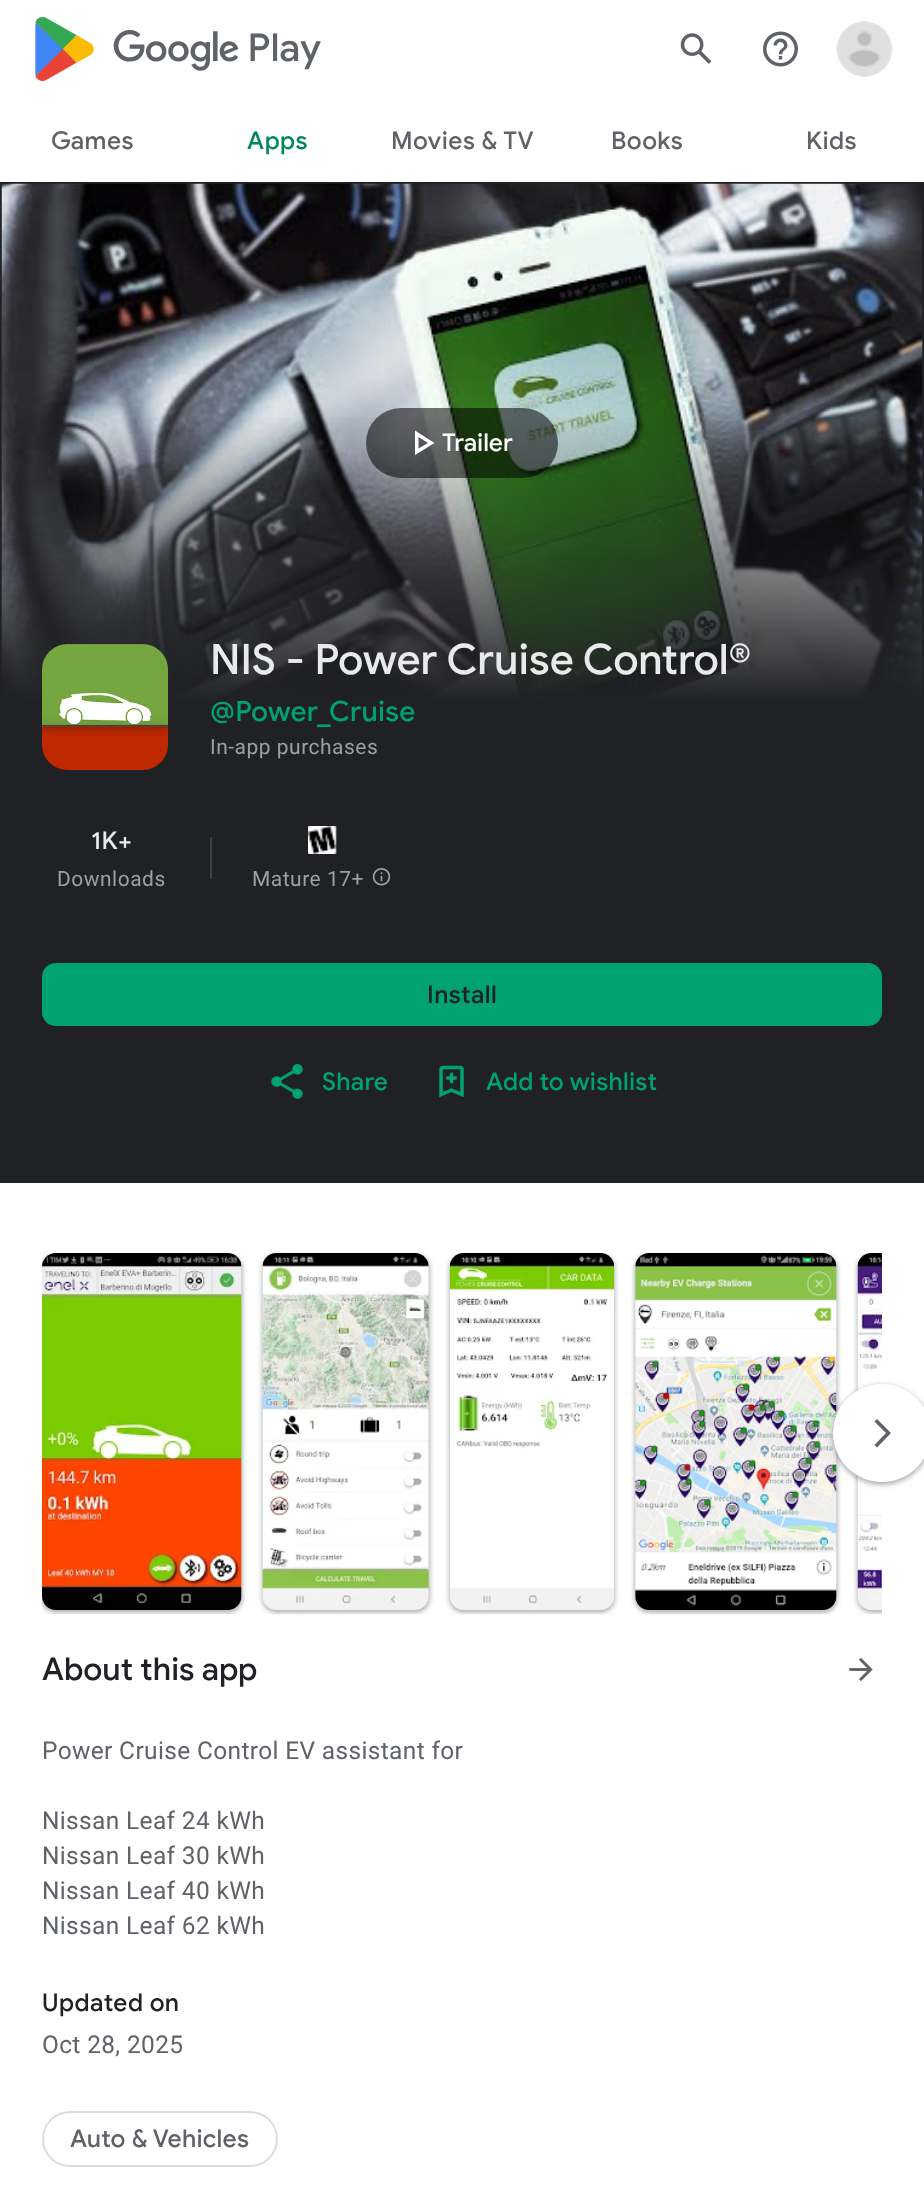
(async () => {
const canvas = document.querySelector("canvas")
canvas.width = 924
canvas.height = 2211
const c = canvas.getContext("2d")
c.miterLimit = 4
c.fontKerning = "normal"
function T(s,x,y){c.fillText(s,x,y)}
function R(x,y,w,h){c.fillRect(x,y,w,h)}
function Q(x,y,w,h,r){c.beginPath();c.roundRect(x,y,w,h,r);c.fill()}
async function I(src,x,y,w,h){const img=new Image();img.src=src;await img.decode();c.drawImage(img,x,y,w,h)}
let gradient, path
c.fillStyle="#fff"
R(0,0,924,2211)
await I("1.png",35,17,59,64)
c.font="500 38.5px Google Sans"
c.fillStyle="#5f6368"
T("google_logo Play",112,61)
await I("2.png",680,33,32,31)
await I("3.png",763,31,35,36)
await I("4.png",836,21,57,56)
c.letterSpacing="0.5px"
c.font="500 24.5px Google Sans"
T("Games",51,149)
c.fillStyle="#01875f"
T("Apps",247,149)
c.fillStyle="#5f6368"
T("Movies & TV",391,149)
T("Books",611,149)
T("Kids",806,149)
c.fillStyle="#202124"
R(0,182,924,1001)
await I("5.png",1,183,922,517)
gradient = c.createLinearGradient(462,702,462,182)
gradient.addColorStop(0,"#202124")
gradient.addColorStop(.56,"#20212400")
c.fillStyle = gradient
R(1,417,922,283)
c.fillStyle="#0000008a"
Q(366,408,192,70,35)
c.fillStyle="#fff"
path = new Path2D("M418.5 437l9.5 6l-9.5 5.5zm-3.5-6.5v24.5l19.5-12z")
c.fill(path)
c.letterSpacing="0px"
T("Trailer",442,451)
await I("6.png",42,644,126,126)
c.font="500 42px Google Sans"
c.fillStyle="#e8eaed"
T("NIS - Power Cruise Control®",210,674)
c.letterSpacing="0.25px"
c.font="500 28px Google Sans"
c.fillStyle="#00a173"
T("@Power_Cruise",210,721)
c.letterSpacing="0.5px"
c.font="21px Roboto"
c.fillStyle="#9aa0a6"
T("In-app purchases",210,754)
c.font="500 24.5px Google Sans"
c.fillStyle="#e8eaed"
T("1K+",91,849)
c.font="21px Roboto"
c.fillStyle="#9aa0a6"
T("Downloads",57,886)
c.fillStyle="#3c4043"
R(210,837,2,42)
await I("7.png",308,826,29,28)
c.fillStyle="#9aa0a6"
T("Mature 17+",252,886)
await I("8.png",372,868,19,18)
c.fillStyle="#00a173"
Q(42,963,840,63,14)
c.font="500 24.5px Google Sans"
c.fillStyle="#202124"
T("Install",427,1003)
await I("9.png",271,1064,32,35)
c.letterSpacing="0.25px"
c.fillStyle="#00a173"
T("Share",322,1090)
await I("10.png",439,1065,25,33)
T("Add to wishlist",486,1090)
c.save()
c.beginPath()
c.rect(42,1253,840,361)
c.clip()
c.fillStyle="#3c404326"
c.filter="blur(2.5px)"
c.beginPath()
c.roundRect(40,1253,203,361,16)
c.fill()
c.filter="none"
c.fillStyle="#3c40434d"
c.filter="blur(2px)"
c.beginPath()
c.roundRect(42,1255,200,357,14)
c.fill()
c.filter="none"
c.restore()
await I("11.png",42,1253,200,357)
c.save()
c.beginPath()
c.rect(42,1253,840,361)
c.clip()
c.fillStyle="#3c404326"
c.filter="blur(2.5px)"
c.beginPath()
c.roundRect(261,1253,170,361,16)
c.fill()
c.filter="none"
c.restore()
c.fillStyle="#3c40434d"
c.filter="blur(2px)"
c.beginPath()
c.roundRect(263,1255,166,357,14)
c.fill()
c.filter="none"
await I("12.png",262,1253,167,357)
c.save()
c.beginPath()
c.rect(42,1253,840,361)
c.clip()
c.fillStyle="#3c404326"
c.filter="blur(2.5px)"
c.beginPath()
c.roundRect(448,1253,168,361,16)
c.fill()
c.filter="none"
c.restore()
c.filter="blur(2px)"
c.beginPath()
c.roundRect(450,1255,164,357,14)
c.fill()
c.filter="none"
await I("13.png",449,1253,166,357)
c.save()
c.beginPath()
c.rect(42,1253,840,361)
c.clip()
c.fillStyle="#3c404326"
c.filter="blur(2.5px)"
c.beginPath()
c.roundRect(634,1253,204,361,16)
c.fill()
c.filter="none"
c.restore()
c.filter="blur(2px)"
c.beginPath()
c.roundRect(635,1255,202,357,14)
c.fill()
c.filter="none"
await I("14.png",635,1253,202,357)
c.save()
c.beginPath()
c.rect(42,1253,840,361)
c.clip()
c.fillStyle="#3c404326"
c.filter="blur(2.5px)"
c.beginPath()
c.roundRect(856,1253,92,361,16)
c.fill()
c.filter="none"
c.fillStyle="#3c40434d"
c.filter="blur(2px)"
c.beginPath()
c.roundRect(858,1255,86,357,14)
c.fill()
c.filter="none"
c.restore()
await I("15.png",857,1253,25,357)
c.fillStyle="#3c404326"
c.filter="blur(2.5px)"
c.beginPath()
c.roundRect(831,1384,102,102,51)
c.fill()
c.filter="none"
c.fillStyle="#3c40434d"
c.filter="blur(2px)"
c.beginPath()
c.roundRect(833,1386,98,98,49)
c.fill()
c.filter="none"
c.fillStyle="#fff"
c.beginPath()
c.arc(882,1433,49,0,7)
c.fill()
c.fillStyle="#5f6368"
path = new Path2D("M874.5 1445l2.5 2.5l14-14.5l-14-14l-2.5 2.5l11.5 11.5z")
c.fill(path)
c.letterSpacing="0px"
c.font="500 31.5px Google Sans"
c.fillStyle="#202124"
T("About this app",42,1680)
await I("16.png",849,1658,24,23)
c.letterSpacing="0.35px"
c.font="24.5px Roboto"
c.fillStyle="#5f6368"
T("Power Cruise Control EV assistant for",42,1759)
T("Nissan Leaf 24 kWh",42,1829)
T("Nissan Leaf 30 kWh",42,1864)
T("Nissan Leaf 40 kWh",42,1899)
T("Nissan Leaf 62 kWh",42,1934)
c.letterSpacing="0.5px"
c.font="500 24.5px Google Sans"
c.fillStyle="#202124"
T("Updated on",42,2011)
c.letterSpacing="0.35px"
c.font="24.5px Roboto"
c.fillStyle="#5f6368"
T("Oct 28, 2025",42,2053)
c.beginPath()
c.roundRect(43,2112,234,54,27)
c.strokeStyle="#dadce0"
c.lineWidth=2
c.stroke()
c.letterSpacing="0.25px"
c.font="500 24.5px Google Sans"
T("Auto & Vehicles",70,2147)
})()
